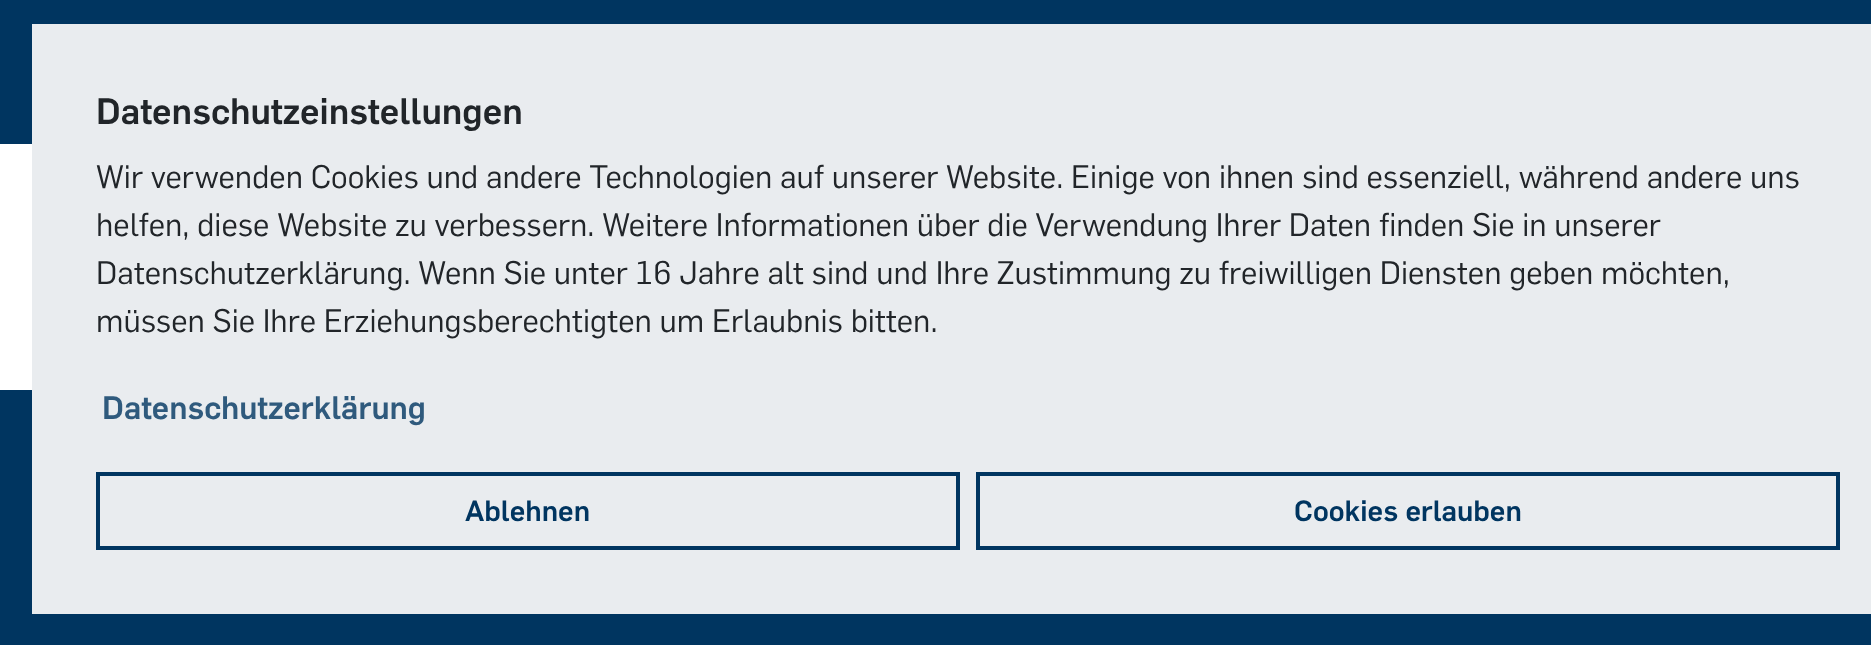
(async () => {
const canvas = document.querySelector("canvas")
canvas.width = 1871
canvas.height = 645
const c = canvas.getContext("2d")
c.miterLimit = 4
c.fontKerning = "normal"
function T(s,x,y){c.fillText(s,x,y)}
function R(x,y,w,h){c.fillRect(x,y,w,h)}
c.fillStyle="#fff"
R(0,0,1871,645)
c.fillStyle="#003560"
R(0,0,1871,144)
R(0,390,1871,255)
c.fillStyle="#e9ecef"
R(32,24,1839,590)
c.font="bold 36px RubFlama"
c.fillStyle="#212529"
T("Datenschutzeinstellungen",96,124)
c.font="32px RubFlama"
T("Wir verwenden Cookies und andere Technologien auf unserer Website. Einige von ihnen sind essenziell, während andere uns",96,188)
T("helfen, diese Website zu verbessern. Weitere Informationen über die Verwendung Ihrer Daten finden Sie in unserer",96,236)
T("Datenschutzerklärung. Wenn Sie unter 16 Jahre alt sind und Ihre Zustimmung zu freiwilligen Diensten geben möchten,",96,284)
T("müssen Sie Ihre Erziehungsberechtigten um Erlaubnis bitten.",96,332)
c.font="bold 32px RubFlama"
c.fillStyle="#2f5a7d"
T("Datenschutzerklärung",102,419)
c.strokeStyle="#003560"
c.lineWidth=4
c.strokeRect(98,474,860,74)
c.font="bold 28.75px RubFlama"
c.fillStyle="#003560"
T("Ablehnen",465,521)
c.strokeRect(978,474,860,74)
T("Cookies erlauben",1294,521)
})()
